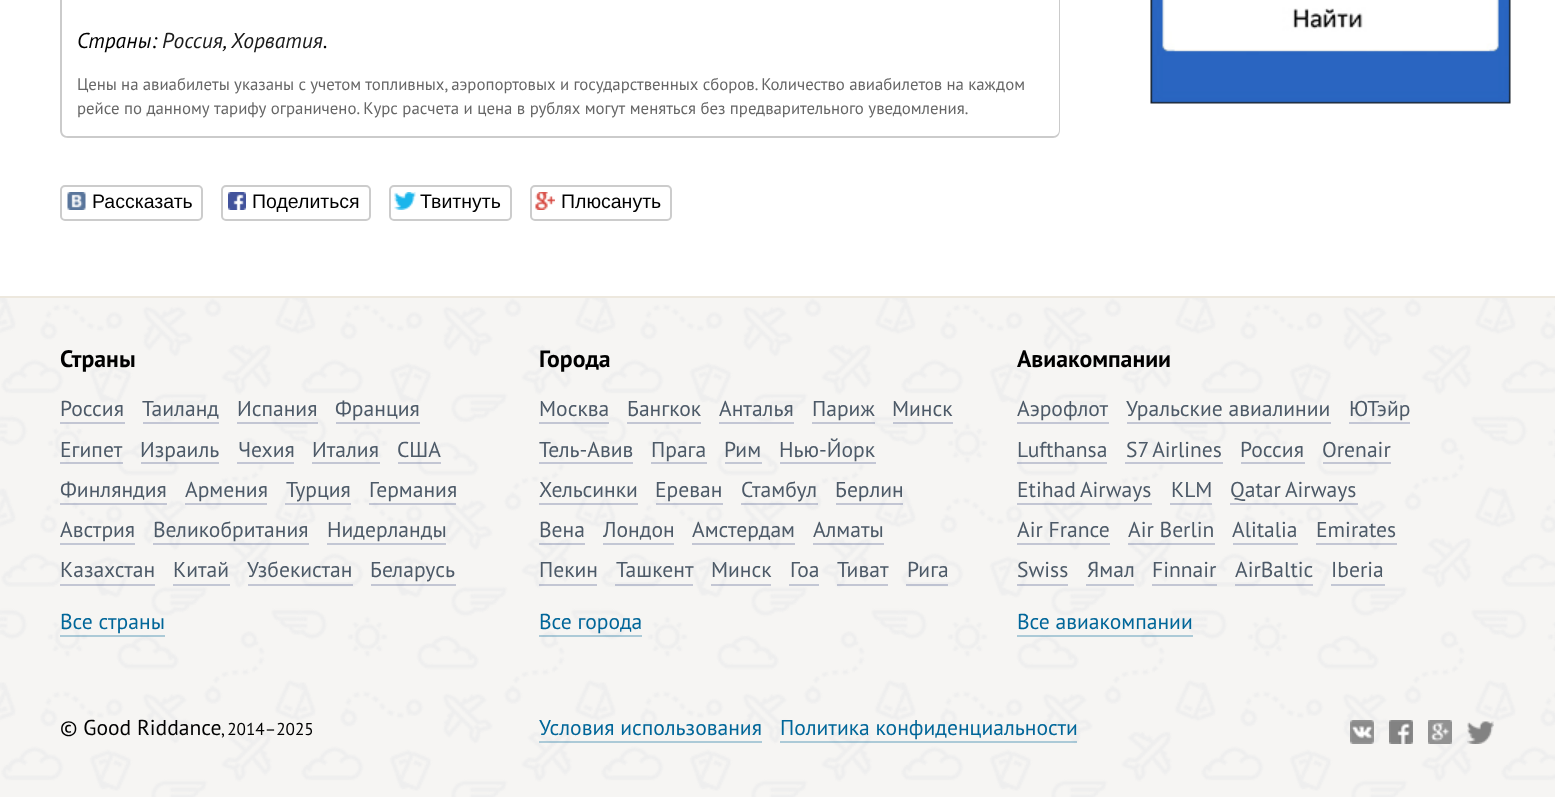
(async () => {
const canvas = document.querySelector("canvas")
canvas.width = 1555
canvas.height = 797
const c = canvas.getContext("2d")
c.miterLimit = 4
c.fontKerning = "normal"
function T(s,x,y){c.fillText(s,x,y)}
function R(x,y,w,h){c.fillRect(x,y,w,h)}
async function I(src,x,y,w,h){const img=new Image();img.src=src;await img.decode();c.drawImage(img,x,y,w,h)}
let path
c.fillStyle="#f6f5f3"
R(0,0,1555,797)
await I("1.png",0,298,1555,499)
c.fillStyle="#fff"
R(0,0,1555,296)
c.fillStyle="#ede8de"
R(0,296,1555,2)
c.fillStyle="#cbcbcb"
path = new Path2D("M60-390h1000v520c0 5-3 8-7 8h-985c-5 0-8-3-8-8zm2 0h997v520c0 4-3 6-6 6h-985c-4 0-6-2-6-6z")
c.fill(path,"evenodd")
c.font="italic 21.6px PT Sans"
c.fillStyle="#000"
T("Страны:",77,48)
c.fillStyle="#1b1b1b"
T("Россия",162,48)
c.fillStyle="#000"
T(",",223,48)
c.fillStyle="#1b1b1b"
T("Хорватия",231,48)
c.fillStyle="#000"
T(".",323,48)
c.wordSpacing="-0.2px"
c.font="16.8px PT Sans"
c.fillStyle="#666"
T("Цены на авиабилеты указаны с учетом топливных, аэропортовых и государственных сборов. Количество авиабилетов на каждом",77,90)
c.wordSpacing="0px"
T("рейсе по данному тарифу ограничено. Курс расчета и цена в рублях могут меняться без предварительного уведомления.",77,114)
c.beginPath()
c.roundRect(61,186,141,34,4)
c.strokeStyle="#ccc"
c.lineWidth=2
c.stroke()
await I("2.png",67,192,19,18)
c.font="19.5px Liberation Sans"
c.fillStyle="#000"
T("Рассказать",92,208)
c.beginPath()
c.roundRect(222,186,148,34,4)
c.stroke()
await I("3.png",228,192,18,18)
T("Поделиться",252,208)
c.beginPath()
c.roundRect(390,186,121,34,4)
c.stroke()
await I("4.png",394,192,22,18)
T("Твитнуть",420,208)
c.beginPath()
c.roundRect(531,186,140,34,4)
c.stroke()
await I("5.png",535,192,20,18)
T("Плюсануть",561,208)
await I("6.png",1150,0,361,104)
c.font="bold 23.75px PT Sans"
T("Страны",60,367)
c.font="21.6px PT Sans"
c.fillStyle="#4d5a68"
T("Россия",60,416)
c.fillStyle="#4d5a8c4d"
R(60,422,65,2)
c.fillStyle="#4d5a68"
T("Таиланд",142,416)
c.fillStyle="#c3c6d4"
R(143,422,76,2)
c.fillStyle="#4d5a68"
T("Испания",237,416)
c.fillStyle="#4d5a8c4d"
R(237,422,81,2)
c.fillStyle="#4d5a68"
T("Франция",335,416)
c.fillStyle="#4d5a8c4d"
R(336,422,84,2)
c.fillStyle="#4d5a68"
T("Египет",60,457)
c.fillStyle="#4d5a8c4d"
R(60,462,63,2)
c.fillStyle="#4d5a68"
T("Израиль",140,457)
c.fillStyle="#4d5a8c4d"
R(141,462,78,2)
c.fillStyle="#4d5a68"
T("Чехия",238,457)
c.fillStyle="#c3c6d4"
R(237,462,57,2)
c.fillStyle="#4d5a68"
T("Италия",312,457)
c.fillStyle="#4d5a8c4d"
R(312,462,68,2)
c.fillStyle="#4d5a68"
T("США",397,457)
c.fillStyle="#4d5a8c4d"
R(398,462,43,2)
c.fillStyle="#4d5a68"
T("Финляндия",60,497)
c.fillStyle="#4d5a8c4d"
R(60,503,107,2)
c.fillStyle="#4d5a68"
T("Армения",185,497)
c.fillStyle="#4d5a8c4d"
R(185,503,82,2)
c.fillStyle="#4d5a68"
T("Турция",286,497)
c.fillStyle="#4d5a8c4d"
R(285,503,66,2)
c.fillStyle="#4d5a68"
T("Германия",369,497)
c.fillStyle="#4d5a8c4d"
R(369,503,87,2)
c.fillStyle="#4d5a68"
T("Австрия",60,537)
c.fillStyle="#c3c7d4"
R(60,543,75,2)
c.fillStyle="#4d5a68"
T("Великобритания",153,537)
c.fillStyle="#4d5a8c4d"
R(153,543,156,2)
c.fillStyle="#4d5a68"
T("Нидерланды",327,537)
c.fillStyle="#c3c7d4"
R(327,543,119,2)
c.fillStyle="#4d5a68"
T("Казахстан",60,577)
c.fillStyle="#4d5a8c4d"
R(60,584,95,2)
c.fillStyle="#4d5a68"
T("Китай",173,577)
c.fillStyle="#c3c7d4"
R(173,584,57,2)
c.fillStyle="#4d5a68"
T("Узбекистан",247,577)
c.fillStyle="#4d5a8c4d"
R(248,584,105,2)
c.fillStyle="#4d5a68"
T("Беларусь",370,577)
c.fillStyle="#4d5a8c4d"
R(371,584,85,2)
c.fillStyle="#069"
T("Все страны",60,629)
c.fillStyle="#0066994d"
R(60,635,105,2)
c.font="bold 23.75px PT Sans"
c.fillStyle="#000"
T("Города",539,367)
c.font="21.6px PT Sans"
c.fillStyle="#4d5a68"
T("Москва",539,416)
c.fillStyle="#4d5a8c4d"
R(539,422,70,2)
c.fillStyle="#4d5a68"
T("Бангкок",627,416)
c.fillStyle="#4d5a8c4d"
R(627,422,74,2)
c.fillStyle="#4d5a68"
T("Анталья",719,416)
c.fillStyle="#c3c6d4"
R(719,422,75,2)
c.fillStyle="#4d5a68"
T("Париж",812,416)
c.fillStyle="#4d5a8c4d"
R(812,422,63,2)
c.fillStyle="#4d5a68"
T("Минск",892,416)
c.fillStyle="#4d5a8c4d"
R(893,422,60,2)
c.fillStyle="#4d5a68"
T("Тель-Авив",539,457)
c.fillStyle="#c3c6d4"
R(539,462,94,2)
c.fillStyle="#4d5a68"
T("Прага",651,457)
c.fillStyle="#4d5a8c4d"
R(651,462,56,2)
c.fillStyle="#4d5a68"
T("Рим",724,457)
c.fillStyle="#c3c7d4"
R(725,462,37,2)
c.fillStyle="#4d5a68"
T("Нью-Йорк",779,457)
c.fillStyle="#c3c6d4"
R(780,462,96,2)
c.fillStyle="#4d5a68"
T("Хельсинки",539,497)
c.fillStyle="#4d5a8c4d"
R(539,503,99,2)
c.fillStyle="#4d5a68"
T("Ереван",655,497)
c.fillStyle="#4d5a8c4d"
R(656,503,67,2)
c.fillStyle="#4d5a68"
T("Стамбул",741,497)
c.fillStyle="#4d5a8c4d"
R(741,503,77,2)
c.fillStyle="#4d5a68"
T("Берлин",835,497)
c.fillStyle="#4d5a8c4d"
R(836,503,67,2)
c.fillStyle="#4d5a68"
T("Вена",539,537)
c.fillStyle="#4d5a8c4d"
R(539,543,46,2)
c.fillStyle="#4d5a68"
T("Лондон",603,537)
c.fillStyle="#c3c7d4"
R(603,543,71,2)
c.fillStyle="#4d5a68"
T("Амстердам",692,537)
c.fillStyle="#4d5a8c4d"
R(692,543,103,2)
c.fillStyle="#4d5a68"
T("Алматы",813,537)
c.fillStyle="#4d5a8c4d"
R(813,543,71,2)
c.fillStyle="#4d5a68"
T("Пекин",539,577)
c.fillStyle="#4d5a8c4d"
R(539,584,58,2)
c.fillStyle="#4d5a68"
T("Ташкент",616,577)
c.fillStyle="#4d5a8c4d"
R(615,584,78,2)
c.fillStyle="#4d5a68"
T("Минск",711,577)
c.fillStyle="#4d5a8c4d"
R(711,584,60,2)
c.fillStyle="#4d5a68"
T("Гоа",790,577)
c.fillStyle="#c3c7d4"
R(789,584,30,2)
c.fillStyle="#4d5a68"
T("Тиват",837,577)
c.fillStyle="#4d5a8c4d"
R(837,584,51,2)
c.fillStyle="#4d5a68"
T("Рига",907,577)
c.fillStyle="#4d5a8c4d"
R(906,584,42,2)
c.fillStyle="#069"
T("Все города",539,629)
c.fillStyle="#0066994d"
R(539,635,103,2)
c.font="bold 23.75px PT Sans"
c.fillStyle="#000"
T("Авиакомпании",1017,367)
c.font="21.6px PT Sans"
c.fillStyle="#4d5a68"
T("Аэрофлот",1017,416)
c.fillStyle="#c3c6d4"
R(1017,422,92,2)
c.fillStyle="#4d5a68"
T("Уральские авиалинии",1126,416)
c.fillStyle="#4d5a8c4d"
R(1127,422,204,2)
c.fillStyle="#4d5a68"
T("ЮТэйр",1349,416)
c.fillStyle="#c3c6d4"
R(1349,422,61,2)
c.fillStyle="#4d5a68"
T("Lufthansa",1017,457)
c.fillStyle="#4d5a8c4d"
R(1017,462,90,2)
c.wordSpacing="-1px"
c.fillStyle="#4d5a68"
T("S7 Airlines",1126,457)
c.fillStyle="#c3c6d4"
R(1125,462,98,2)
c.wordSpacing="0px"
c.fillStyle="#4d5a68"
T("Россия",1240,457)
c.fillStyle="#4d5a8c4d"
R(1241,462,64,2)
c.fillStyle="#4d5a68"
T("Orenair",1322,457)
c.fillStyle="#4d5a8c4d"
R(1323,462,68,2)
c.wordSpacing="-1px"
c.fillStyle="#4d5a68"
T("Etihad Airways",1017,497)
c.fillStyle="#4d5a8c4d"
R(1017,503,135,2)
c.wordSpacing="0px"
c.fillStyle="#4d5a68"
T("KLM",1171,497)
c.fillStyle="#4d5a8c4d"
R(1170,503,42,2)
c.wordSpacing="-1px"
c.fillStyle="#4d5a68"
T("Qatar Airways",1230,497)
c.fillStyle="#4d5a8c4d"
R(1230,503,128,2)
c.wordSpacing="0px"
c.fillStyle="#4d5a68"
T("Air France",1017,537)
c.fillStyle="#4d5a8c4d"
R(1017,543,93,2)
c.fillStyle="#4d5a68"
T("Air Berlin",1128,537)
c.fillStyle="#4d5a8c4d"
R(1128,543,87,2)
c.fillStyle="#4d5a68"
T("Alitalia",1232,537)
c.fillStyle="#c3c7d4"
R(1233,543,65,2)
c.fillStyle="#4d5a68"
T("Emirates",1316,537)
c.fillStyle="#4d5a8c4d"
R(1316,543,81,2)
c.fillStyle="#4d5a68"
T("Swiss",1017,577)
c.fillStyle="#4d5a8c4d"
R(1017,584,51,2)
c.fillStyle="#4d5a68"
T("Ямал",1087,577)
c.fillStyle="#c3c7d4"
R(1086,584,48,2)
c.fillStyle="#4d5a68"
T("Finnair",1152,577)
c.fillStyle="#4d5a8c4d"
R(1152,584,65,2)
c.fillStyle="#4d5a68"
T("AirBaltic",1235,577)
c.fillStyle="#4d5a8c4d"
R(1235,584,78,2)
c.fillStyle="#4d5a68"
T("Iberia",1331,577)
c.fillStyle="#c3c7d4"
R(1331,584,54,2)
c.fillStyle="#069"
T("Все авиакомпании",1017,629)
c.fillStyle="#0066994d"
R(1017,635,176,2)
c.fillStyle="#000"
T("© Good Riddance",60,735)
c.wordSpacing="-1px"
c.font="17.25px PT Sans"
T(", 2014–2025",221,735)
c.wordSpacing="0px"
c.font="21.6px PT Sans"
c.fillStyle="#069"
T("Условия использования",539,735)
c.fillStyle="#0066994d"
R(539,741,223,2)
c.fillStyle="#069"
T("Политика конфиденциальности",780,735)
c.fillStyle="#0066994d"
R(780,741,297,2)
await I("7.png",1350,720,24,24)
await I("8.png",1389,720,24,24)
await I("9.png",1428,720,24,24)
await I("10.png",1467,721,27,23)
})()
